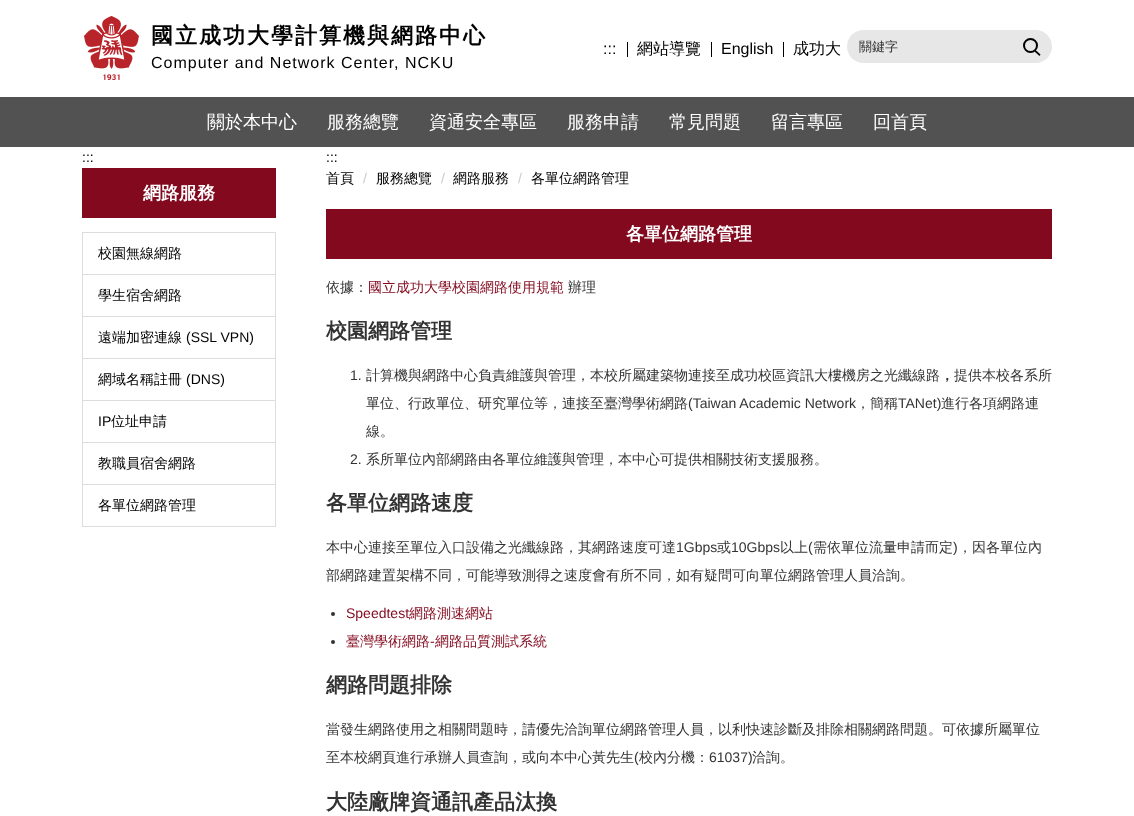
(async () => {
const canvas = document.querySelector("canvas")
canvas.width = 1134
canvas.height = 816
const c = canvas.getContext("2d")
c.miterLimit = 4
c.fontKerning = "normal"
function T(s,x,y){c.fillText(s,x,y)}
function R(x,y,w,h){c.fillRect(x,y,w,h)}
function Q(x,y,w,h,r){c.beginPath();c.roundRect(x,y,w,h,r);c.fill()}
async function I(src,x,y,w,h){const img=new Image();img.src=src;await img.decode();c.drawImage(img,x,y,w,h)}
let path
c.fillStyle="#fff"
R(0,0,1134,816)
await I("1.png",84,16,55,64)
c.letterSpacing="2px"
c.font="bold 22px WenQuanYi Zen Hei"
c.fillStyle="#000"
T("國立成功大學計算機與網路中心",151,43)
c.letterSpacing="1px"
c.font="16px Liberation Sans"
T("Computer and Network Center, NCKU",151,68)
c.letterSpacing="0px"
T(":::",603,54)
R(627,42,1,15)
c.font="500 16px WenQuanYi Zen Hei"
T("網站導覽",637,54)
R(711,42,1,15)
c.font="16px Liberation Sans"
T("English",721,54)
R(783,42,1,15)
c.font="500 16px WenQuanYi Zen Hei"
T("成功大",793,54)
c.fillStyle="#e7e7e7"
Q(847,30,205,33,16.5)
c.font="500 13px WenQuanYi Zen Hei"
c.fillStyle="#333"
T("關鍵字",859,51)
c.beginPath()
c.arc(1030.5,45.5,6.5,0,7)
c.strokeStyle="#000"
c.lineWidth=2
c.stroke()
c.fillStyle="#000"
path = new Path2D("M1035.5 50l5 4.5l-1 1.5l-5-4.5z")
c.fill(path)
c.fillStyle="#525252"
R(0,97,1134,50)
c.font="500 18px WenQuanYi Zen Hei"
c.fillStyle="#fff"
T("關於本中心",207,128)
T("服務總覽",327,128)
T("資通安全專區",429,128)
T("服務申請",567,128)
T("常見問題",669,128)
T("留言專區",771,128)
T("回首頁",873,128)
c.font="14px Liberation Sans"
c.fillStyle="#000"
T(":::",82,162)
c.fillStyle="#82091e"
R(82,168,194,50)
c.font="bold 18px WenQuanYi Zen Hei"
c.fillStyle="#fff"
T("網路服務",143,199)
c.strokeStyle="#ddd"
c.lineWidth=1
c.strokeRect(82.5,232.5,193,42)
c.font="500 14px WenQuanYi Zen Hei"
c.fillStyle="#000"
T("校園無線網路",98,258)
c.strokeRect(82.5,274.5,193,42)
T("學生宿舍網路",98,300)
c.strokeRect(82.5,316.5,193,42)
T("遠端加密連線",98,342)
c.font="14px Liberation Sans"
T("(SSL VPN)",186,342)
c.strokeRect(82.5,358.5,193,42)
c.font="500 14px WenQuanYi Zen Hei"
T("網域名稱註冊",98,384)
c.font="14px Liberation Sans"
T("(DNS)",186,384)
c.strokeRect(82.5,400.5,193,42)
T("IP",98,426)
c.font="500 14px WenQuanYi Zen Hei"
T("位址申請",111,426)
c.strokeRect(82.5,442.5,193,42)
T("教職員宿舍網路",98,468)
c.strokeRect(82.5,484.5,193,42)
T("各單位網路管理",98,510)
c.font="14px Liberation Sans"
T(":::",326,162)
c.font="500 14px WenQuanYi Zen Hei"
T("首頁",326,183)
c.font="14px Liberation Sans"
c.fillStyle="#ccc"
T("/",363,183)
c.font="500 14px WenQuanYi Zen Hei"
c.fillStyle="#000"
T("服務總覽",376,183)
c.font="14px Liberation Sans"
c.fillStyle="#ccc"
T("/",441,183)
c.font="500 14px WenQuanYi Zen Hei"
c.fillStyle="#000"
T("網路服務",453,183)
c.font="14px Liberation Sans"
c.fillStyle="#ccc"
T("/",518,183)
c.font="500 14px WenQuanYi Zen Hei"
c.fillStyle="#000"
T("各單位網路管理",531,183)
c.fillStyle="#82091e"
R(326,209,726,50)
c.font="bold 18px WenQuanYi Zen Hei"
c.fillStyle="#fff"
T("各單位網路管理",626,240)
c.font="500 14px WenQuanYi Zen Hei"
c.fillStyle="#333"
T("依據：",326,292)
c.fillStyle="#82091e"
T("國立成功大學校園網路使用規範",368,292)
c.fillStyle="#333"
T("辦理",568,292)
c.font="bold 21px WenQuanYi Zen Hei"
T("校園網路管理",326,338)
c.font="14px Liberation Sans"
T("1.",350,380)
c.font="500 14px WenQuanYi Zen Hei"
T("計算機與網路中心負責維護與管理，本校所屬建築物連接至成功校區資訊大樓機房之光纖線路",366,380)
c.font="bold 14px WenQuanYi Zen Hei"
T("，",940,380)
c.font="500 14px WenQuanYi Zen Hei"
T("提供本校各系所",954,380)
T("單位、行政單位、研究單位等，連接至臺灣學術網路",366,408)
c.font="14px Liberation Sans"
T("(Taiwan Academic Network",688,408)
c.font="500 14px WenQuanYi Zen Hei"
T("，簡稱",856,408)
c.font="14px Liberation Sans"
T("TANet)",898,408)
c.font="500 14px WenQuanYi Zen Hei"
T("進行各項網路連",941,408)
T("線。",366,436)
c.font="14px Liberation Sans"
T("2.",350,464)
c.font="500 14px WenQuanYi Zen Hei"
T("系所單位內部網路由各單位維護與管理，本中心可提供相關技術支援服務。",366,464)
c.font="bold 21px WenQuanYi Zen Hei"
T("各單位網路速度",326,510)
c.font="500 14px WenQuanYi Zen Hei"
T("本中心連接至單位入口設備之光纖線路，其網路速度可達",326,552)
c.font="14px Liberation Sans"
T("1Gbps",676,552)
c.font="500 14px WenQuanYi Zen Hei"
T("或",717,552)
c.font="14px Liberation Sans"
T("10Gbps",731,552)
c.font="500 14px WenQuanYi Zen Hei"
T("以上",780,552)
c.font="14px Liberation Sans"
T("(",808,552)
c.font="500 14px WenQuanYi Zen Hei"
T("需依單位流量申請而定",813,552)
c.font="14px Liberation Sans"
T(")",953,552)
c.font="500 14px WenQuanYi Zen Hei"
T("，因各單位內",958,552)
T("部網路建置架構不同，可能導致測得之速度會有所不同，如有疑問可向單位網路管理人員洽詢。",326,580)
c.beginPath()
c.arc(333,614,2,0,7)
c.fill()
c.font="14px Liberation Sans"
c.fillStyle="#82091e"
T("Speedtest",346,618)
c.font="500 14px WenQuanYi Zen Hei"
T("網路測速網站",409,618)
c.fillStyle="#333"
c.beginPath()
c.arc(333,642,2,0,7)
c.fill()
c.fillStyle="#82091e"
T("臺灣學術網路",346,646)
c.font="14px Liberation Sans"
T("-",430,646)
c.font="500 14px WenQuanYi Zen Hei"
T("網路品質測試系統",435,646)
c.font="bold 21px WenQuanYi Zen Hei"
c.fillStyle="#333"
T("網路問題排除",326,692)
c.font="500 14px WenQuanYi Zen Hei"
T("當發生網路使用之相關問題時，請優先洽詢單位網路管理人員，以利快速診斷及排除相關網路問題。可依據所屬單位",326,734)
T("至本校網頁進行承辦人員查詢，或向本中心黃先生",326,762)
c.font="14px Liberation Sans"
T("(",634,762)
c.font="500 14px WenQuanYi Zen Hei"
T("校內分機：",639,762)
c.font="14px Liberation Sans"
T("61037)",709,762)
c.font="500 14px WenQuanYi Zen Hei"
T("洽詢。",752,762)
c.font="bold 21px WenQuanYi Zen Hei"
T("大陸廠牌資通訊產品汰換",326,809)
})()
